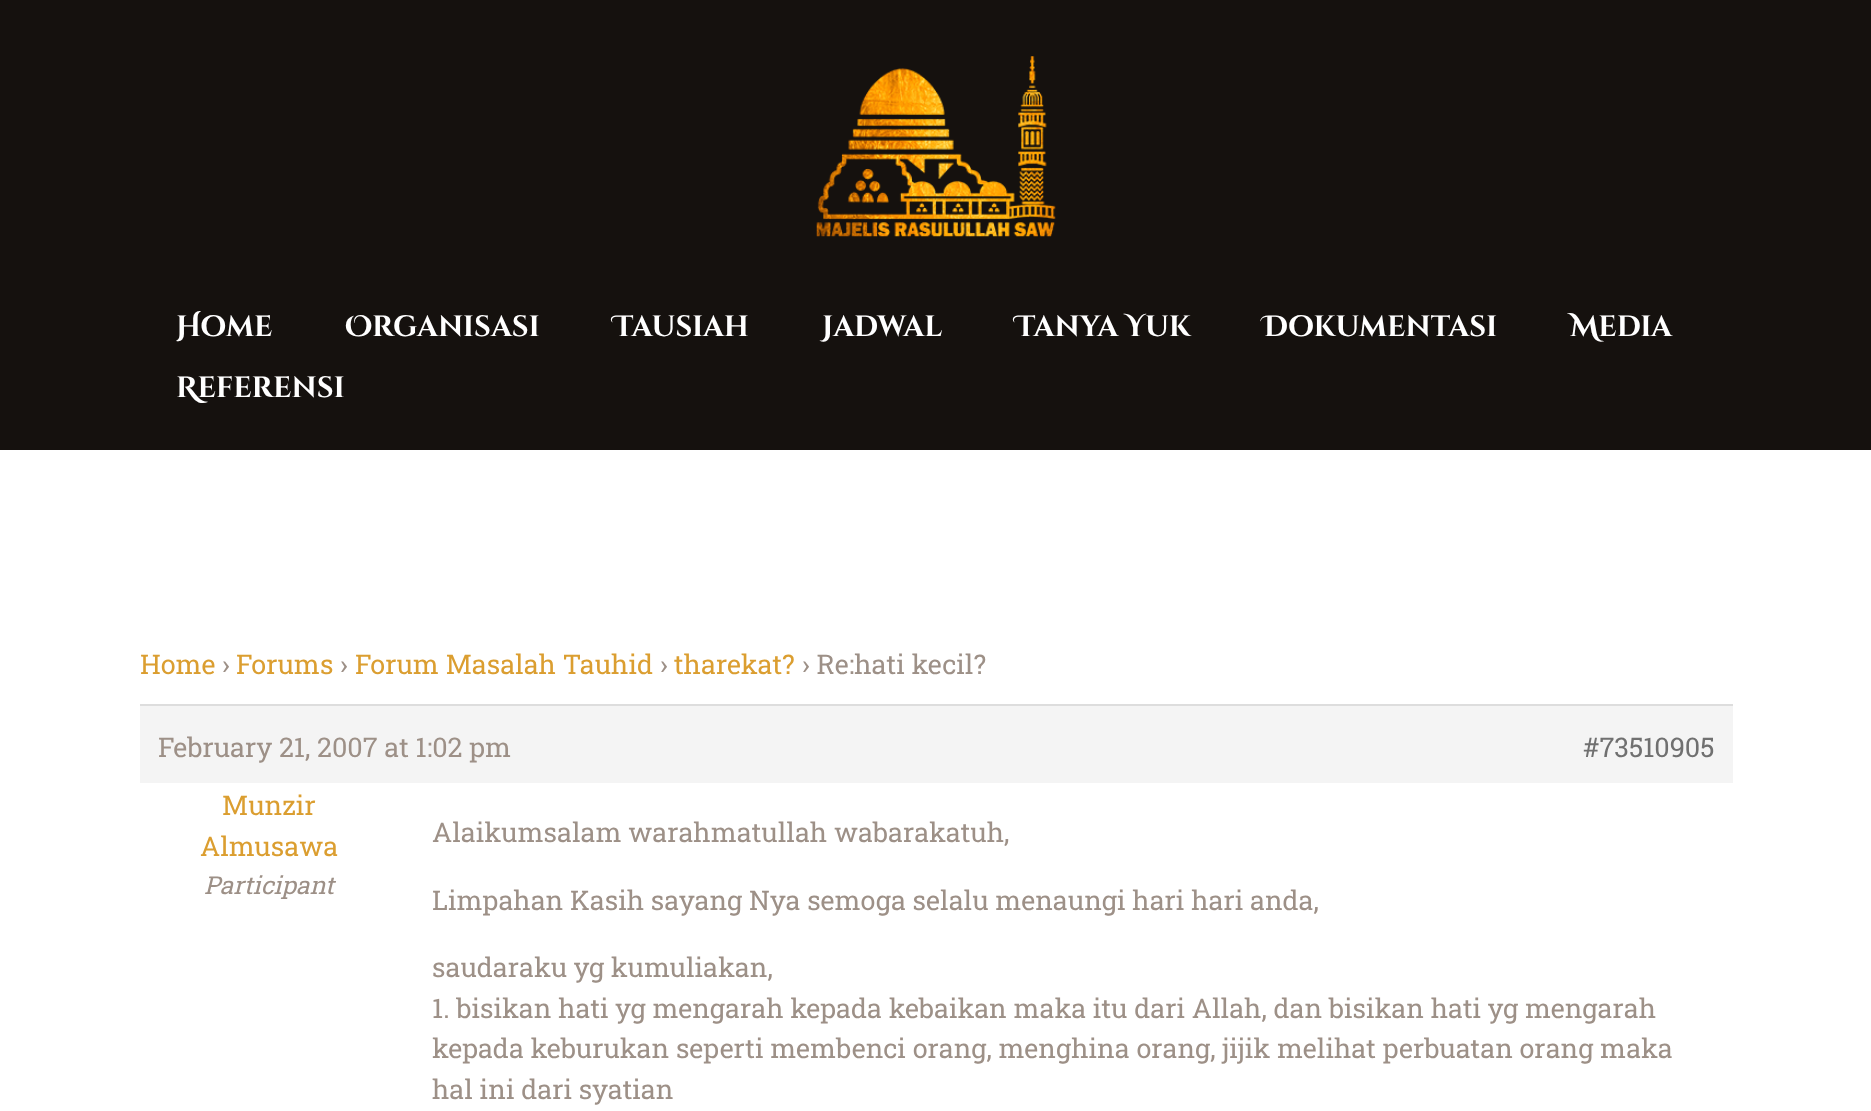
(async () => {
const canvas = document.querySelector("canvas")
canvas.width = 1871
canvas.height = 1111
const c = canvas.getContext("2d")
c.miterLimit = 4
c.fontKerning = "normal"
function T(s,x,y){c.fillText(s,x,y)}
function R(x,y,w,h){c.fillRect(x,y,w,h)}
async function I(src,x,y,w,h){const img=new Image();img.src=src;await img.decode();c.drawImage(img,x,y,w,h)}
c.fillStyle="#fff"
R(0,0,1871,1111)
c.fillStyle="#15110e"
R(0,0,1871,450)
await I("1.png",816,56,240,181)
c.font="bold 29.25px Cinzel Decorative"
c.fillStyle="#fff"
T("Home",176,336)
T("Organisasi",345,336)
T("Tausiah",613,336)
T("Jadwal",822,336)
T("Tanya Yuk",1015,336)
T("Dokumentasi",1263,336)
T("Media",1570,336)
T("Referensi",176,397)
c.font="27px Roboto Slab"
c.fillStyle="#db9e30"
T("Home",140,674)
c.fillStyle="#9d9087"
T("›",222,674)
c.fillStyle="#db9e30"
T("Forums",236,674)
c.fillStyle="#9d9087"
T("›",340,674)
c.fillStyle="#db9e30"
T("Forum Masalah Tauhid",355,674)
c.fillStyle="#9d9087"
T("›",660,674)
c.fillStyle="#db9e30"
T("tharekat?",674,674)
c.fillStyle="#9d9087"
T("› Re:hati kecil?",802,674)
c.fillStyle="#f4f4f4"
R(140,706,1593,77)
c.fillStyle="#ddd"
R(140,704,1593,2)
c.fillStyle="#9d9087"
T("February 21, 2007 at 1:02 pm",158,757)
c.fillStyle="#707070"
T("#73510905",1583,757)
c.fillStyle="#db9e30"
T("Munzir",222,815)
T("Almusawa",200,856)
c.font="italic 24.75px Roboto Slab"
c.fillStyle="#9d9087"
T("Participant",204,894)
c.font="27px Roboto Slab"
T("Alaikumsalam warahmatullah wabarakatuh,",432,842)
T("Limpahan Kasih sayang Nya semoga selalu menaungi hari hari anda,",432,910)
T("saudaraku yg kumuliakan,",432,977)
T("1. bisikan hati yg mengarah kepada kebaikan maka itu dari Allah, dan bisikan hati yg mengarah",432,1018)
T("kepada keburukan seperti membenci orang, menghina orang, jijik melihat perbuatan orang maka",432,1058)
T("hal ini dari syatian",432,1099)
})()
